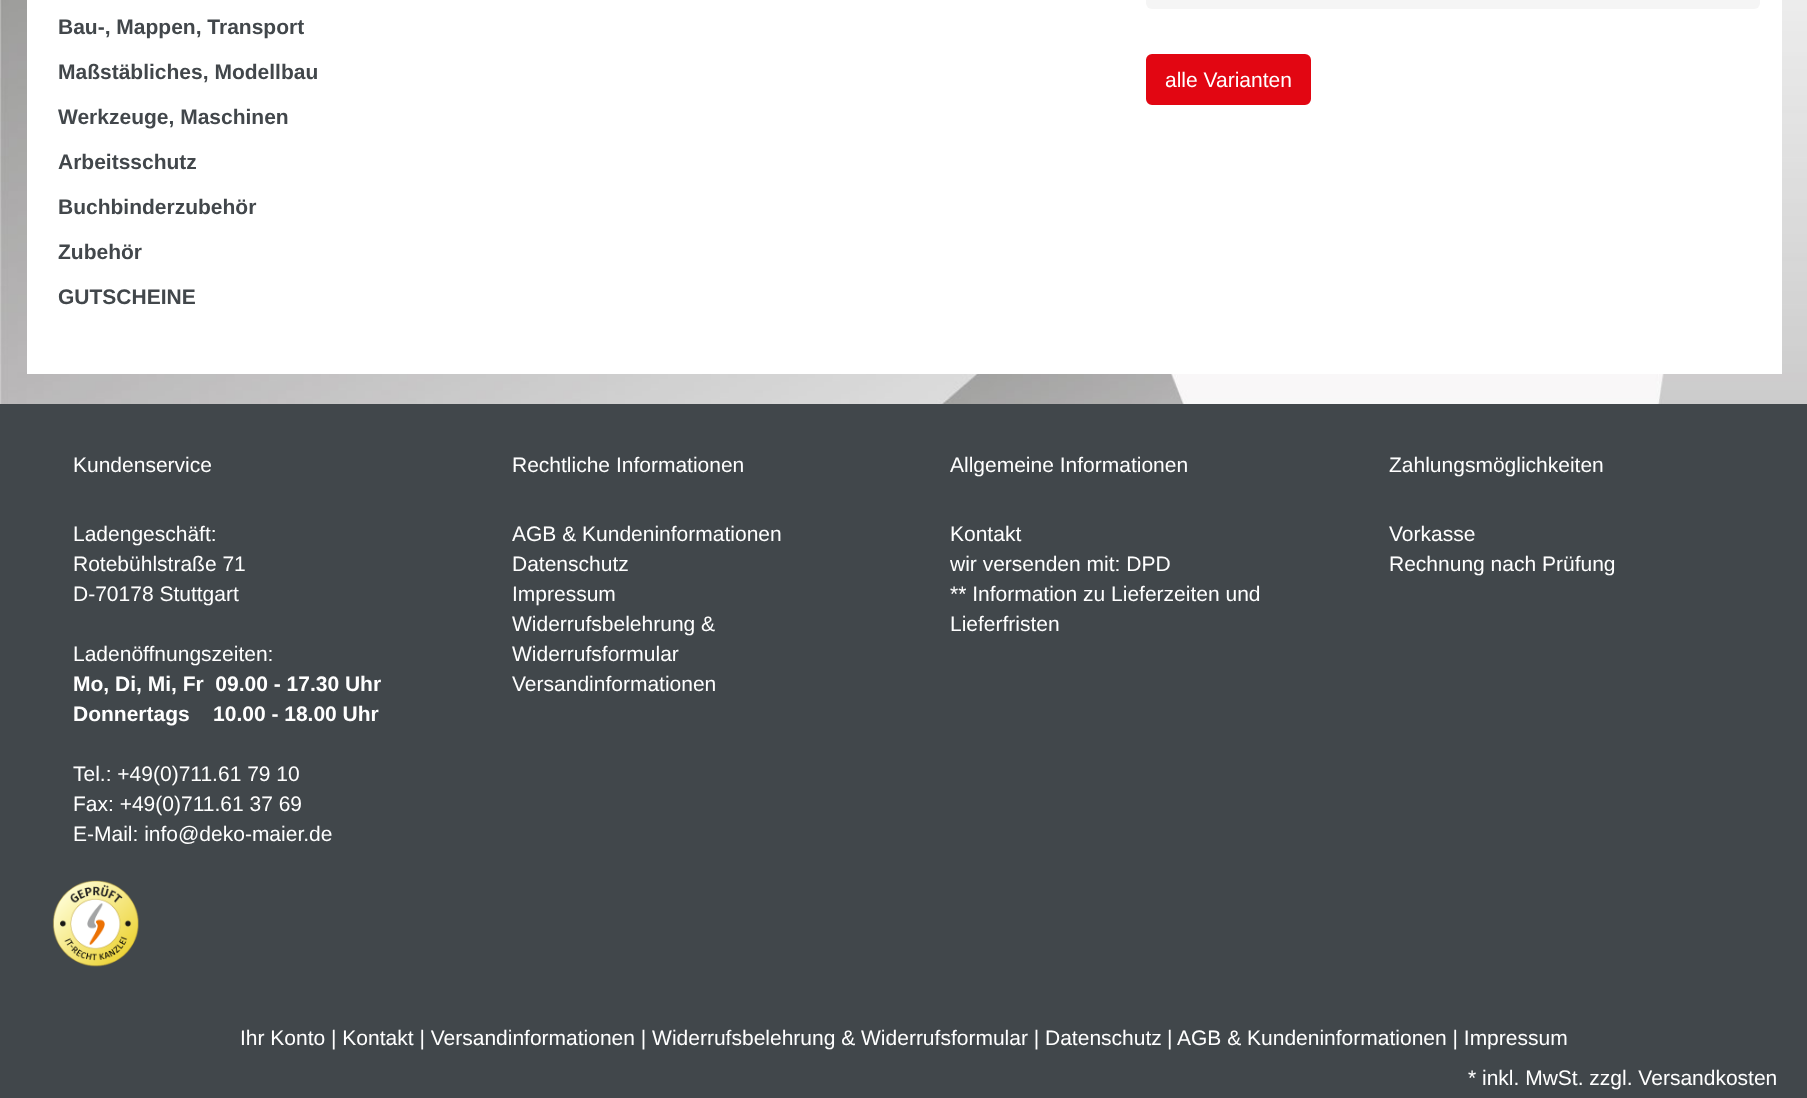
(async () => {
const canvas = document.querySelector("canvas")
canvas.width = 1807
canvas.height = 1098
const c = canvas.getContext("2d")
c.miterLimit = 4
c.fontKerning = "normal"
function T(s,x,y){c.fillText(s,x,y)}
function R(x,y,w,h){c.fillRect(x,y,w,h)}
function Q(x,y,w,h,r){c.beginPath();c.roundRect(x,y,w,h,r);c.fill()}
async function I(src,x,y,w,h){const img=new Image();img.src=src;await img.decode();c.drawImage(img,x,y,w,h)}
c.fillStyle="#fff"
R(0,0,1807,1098)
await I("1.png",0,0,1807,404)
R(27,0,1755,374)
c.font="bold 21px Liberation Sans"
c.fillStyle="#42474b"
T("Bau-, Mappen, Transport",58,34)
T("Maßstäbliches, Modellbau",58,79)
T("Werkzeuge, Maschinen",58,124)
T("Arbeitsschutz",58,169)
T("Buchbinderzubehör",58,214)
T("Zubehör",58,259)
T("GUTSCHEINE",58,304)
c.fillStyle="#f5f5f5"
Q(1146,-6,614,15,6)
c.fillStyle="#e20612"
c.beginPath()
c.roundRect(1147,55,163,49,5)
c.fill()
c.strokeStyle="#e20612"
c.lineWidth=2
c.stroke()
c.font="21px Liberation Sans"
c.fillStyle="#fff"
T("alle Varianten",1165,87)
c.fillStyle="#41474b"
R(0,404,1807,694)
c.fillStyle="#fff"
T("Kundenservice",73,472)
T("Ladengeschäft:",73,541)
T("Rotebühlstraße 71",73,571)
T("D-70178 Stuttgart",73,601)
T("Ladenöffnungszeiten:",73,661)
c.font="bold 21px Liberation Sans"
T("Mo, Di, Mi, Fr  09.00 - 17.30 Uhr",73,691)
T("Donnertags    10.00 - 18.00 Uhr",73,721)
c.font="21px Liberation Sans"
T("Tel.: +49(0)711.61 79 10",73,781)
T("Fax: +49(0)711.61 37 69",73,811)
T("E-Mail: info@deko-maier.de",73,841)
await I("2.png",52,880,87,87)
T("Rechtliche Informationen",512,472)
T("AGB & Kundeninformationen",512,541)
T("Datenschutz",512,571)
T("Impressum",512,601)
T("Widerrufsbelehrung &",512,631)
T("Widerrufsformular",512,661)
T("Versandinformationen",512,691)
T("Allgemeine Informationen",950,472)
T("Kontakt",950,541)
T("wir versenden mit: DPD",950,571)
T("** Information zu Lieferzeiten und",950,601)
T("Lieferfristen",950,631)
T("Zahlungsmöglichkeiten",1389,472)
T("Vorkasse",1389,541)
T("Rechnung nach Prüfung",1389,571)
T("Ihr Konto | Kontakt | Versandinformationen | Widerrufsbelehrung & Widerrufsformular | Datenschutz",240,1045)
T("|",1167,1045)
T("AGB & Kundeninformationen | Impressum",1177,1045)
T("* inkl. MwSt. zzgl. Versandkosten",1468,1085)
})()
